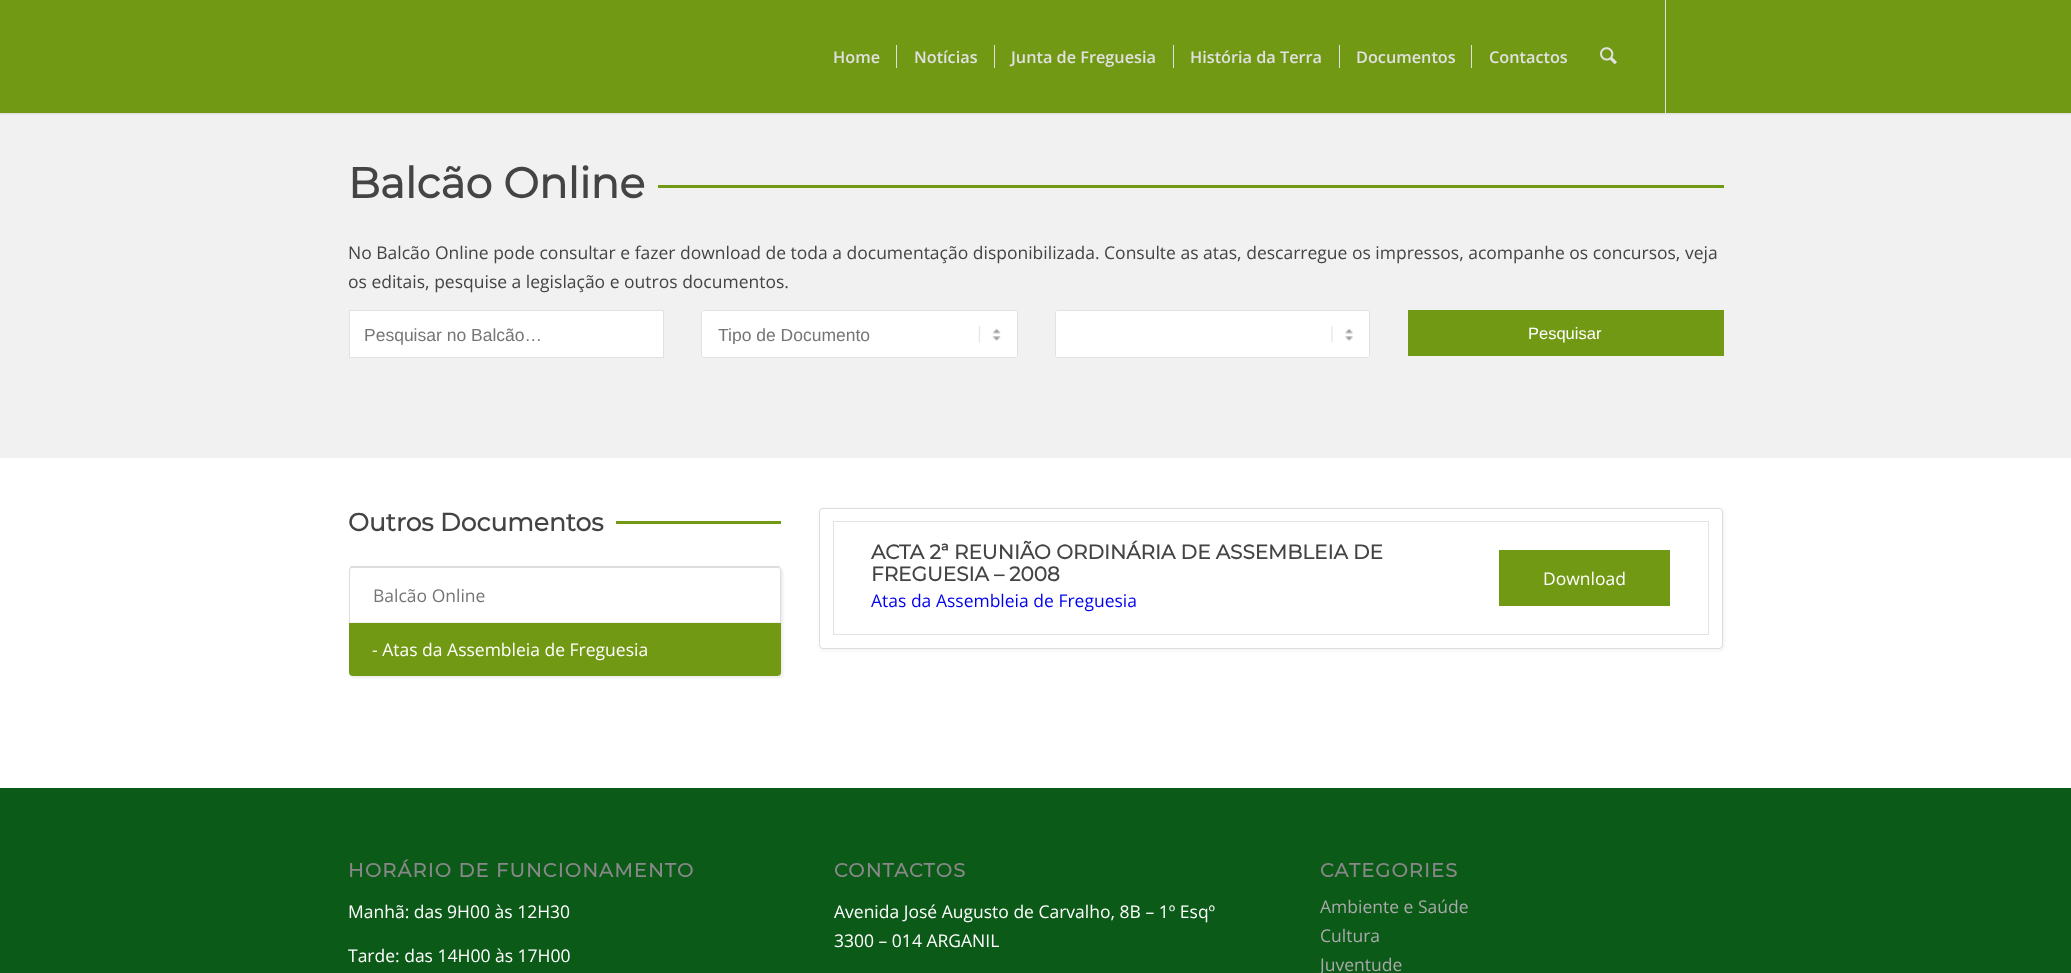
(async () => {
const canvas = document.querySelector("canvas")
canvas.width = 2071
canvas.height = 973
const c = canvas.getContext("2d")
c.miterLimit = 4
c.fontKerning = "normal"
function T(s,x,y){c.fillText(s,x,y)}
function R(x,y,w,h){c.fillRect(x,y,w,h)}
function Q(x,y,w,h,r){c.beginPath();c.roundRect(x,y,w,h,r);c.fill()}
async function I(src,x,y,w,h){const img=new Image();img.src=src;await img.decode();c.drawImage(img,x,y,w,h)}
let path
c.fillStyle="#f1f1f1"
R(0,0,2071,973)
c.fillStyle="#0000001a"
c.filter="blur(1px)"
c.beginPath()
c.rect(-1,-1,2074,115)
c.fill()
c.filter="none"
c.fillStyle="#719913"
R(0,0,2071,113)
c.fillStyle="#e1e1e1"
R(1665,0,1,113)
c.font="600 16.25px Open Sans"
T("Home",833,63)
T("Notícias",914,63)
R(896,45,1,23)
T("Junta de Freguesia",1011,63)
R(994,45,1,23)
T("História da Terra",1190,63)
R(1173,45,1,23)
T("Documentos",1356,63)
R(1339,45,1,23)
T("Contactos",1489,63)
R(1471,45,1,23)
await I("1.png",1600,47,17,17)
c.font="bold 42.5px Montserrat"
c.fillStyle="#444"
T("Balcão Online",348,198)
c.fillStyle="#719913"
R(658,185,1066,3)
c.font="17.5px Open Sans"
c.fillStyle="#444"
T("No Balcão Online pode consultar e fazer download de toda a documentação disponibilizada. Consulte as atas, descarregue os impressos, acompanhe os concursos, veja",348,259)
T("os editais, pesquise a legislação e outros documentos.",348,288)
c.fillStyle="#fff"
c.beginPath()
c.rect(349.5,310.5,314,47)
c.fill()
c.strokeStyle="#e1e1e1"
c.stroke()
c.font="17.5px Liberation Sans"
c.fillStyle="#757575"
T("Pesquisar no Balcão…",364,341)
c.fillStyle="#fff"
Q(701,310,317,48,2.5)
await I("2.png",978,326,23,17)
c.beginPath()
c.roundRect(701.5,310.5,316,47,2)
c.stroke()
c.save()
c.beginPath()
c.rect(718,324,283,20)
c.clip()
c.fillStyle="#757575"
T("Tipo de Documento",718,341)
c.restore()
Q(1055,310,315,48,2.5)
await I("3.png",1331,326,22,17)
c.beginPath()
c.roundRect(1055.5,310.5,314,47,2)
c.stroke()
c.fillStyle="#719913"
R(1408,310,316,46)
c.font="16.5px Liberation Sans"
c.fillStyle="#fff"
T("Pesquisar",1528,339)
R(0,458,2071,330)
c.font="bold 25px Montserrat"
c.fillStyle="#444"
T("Outros Documentos",348,531)
c.fillStyle="#719913"
R(616,521,165,3)
c.save()
path = new Path2D("M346 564h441v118h-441zm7 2h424c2 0 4 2 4 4v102c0 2-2 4-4 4h-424c-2 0-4-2-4-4v-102c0-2 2-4 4-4z")
c.clip(path,"evenodd")
c.fillStyle="#00000014"
c.filter="blur(1px)"
c.beginPath()
c.roundRect(350,568,433,110,4)
c.fill()
c.filter="none"
c.restore()
c.fillStyle="#ddd"
path = new Path2D("M352 568h-1l-1-1l1-1h428l1 1l-1 1h-1z")
c.fill(path)
path = new Path2D("M780 567l1 3v54l-1-2v-52l-1-2z")
c.fill(path)
c.fillStyle="#efefef"
path = new Path2D("M349 624l1-2h430l1 2z")
c.fill(path)
c.fillStyle="#ddd"
path = new Path2D("M349 624v-54l1-3l1 1l-1 2v52z")
c.fill(path)
c.font="17.5px Open Sans"
c.fillStyle="#757575"
T("Balcão Online",373,602)
c.fillStyle="#719913"
c.beginPath()
c.roundRect(349,623,432,53,[0,0,4,4])
c.fill()
c.fillStyle="#fff"
T("- Atas da Assembleia de Freguesia",372,656)
c.fillStyle="#b4b4b433"
c.filter="blur(2px)"
c.beginPath()
c.roundRect(820,509,904,141,4)
c.fill()
c.filter="none"
c.fillStyle="#fff"
c.beginPath()
c.roundRect(819.5,508.5,903,140,3.5)
c.fill()
c.strokeStyle="#ddd"
c.stroke()
c.strokeStyle="#e3e3e3"
c.strokeRect(833.5,521.5,875,113)
c.font="bold 20px Montserrat"
c.fillStyle="#444"
T("ACTA 2ª REUNIÃO ORDINÁRIA DE ASSEMBLEIA DE",871,559)
T("FREGUESIA – 2008",871,581)
c.font="17.5px Open Sans"
c.fillStyle="#00e"
T("Atas da Assembleia de Freguesia",871,607)
c.fillStyle="#719913"
R(1499,550,171,56)
c.fillStyle="#fff"
T("Download",1543,585)
c.fillStyle="#0b5a18"
R(0,788,2071,185)
c.letterSpacing="1.25px"
c.font="bold 19.25px Montserrat"
c.fillStyle="#888"
T("HORÁRIO DE FUNCIONAMENTO",348,877)
c.letterSpacing="0px"
c.font="17.5px Open Sans"
c.fillStyle="#fff"
T("Manhã: das 9H00 às 12H30",348,918)
T("Tarde: das 14H00 às 17H00",348,962)
c.letterSpacing="1.25px"
c.font="bold 19.25px Montserrat"
c.fillStyle="#888"
T("CONTACTOS",834,877)
c.letterSpacing="0px"
c.font="17.5px Open Sans"
c.fillStyle="#fff"
T("Avenida José Augusto de Carvalho, 8B – 1º Esqº",834,918)
T("3300 – 014 ARGANIL",834,947)
c.letterSpacing="1.25px"
c.font="bold 19.25px Montserrat"
c.fillStyle="#888"
T("CATEGORIES",1320,877)
c.letterSpacing="0px"
c.font="17.5px Open Sans"
c.fillStyle="#aaa"
T("Ambiente e Saúde",1320,913)
T("Cultura",1320,942)
T("Juventude",1320,971)
})()
